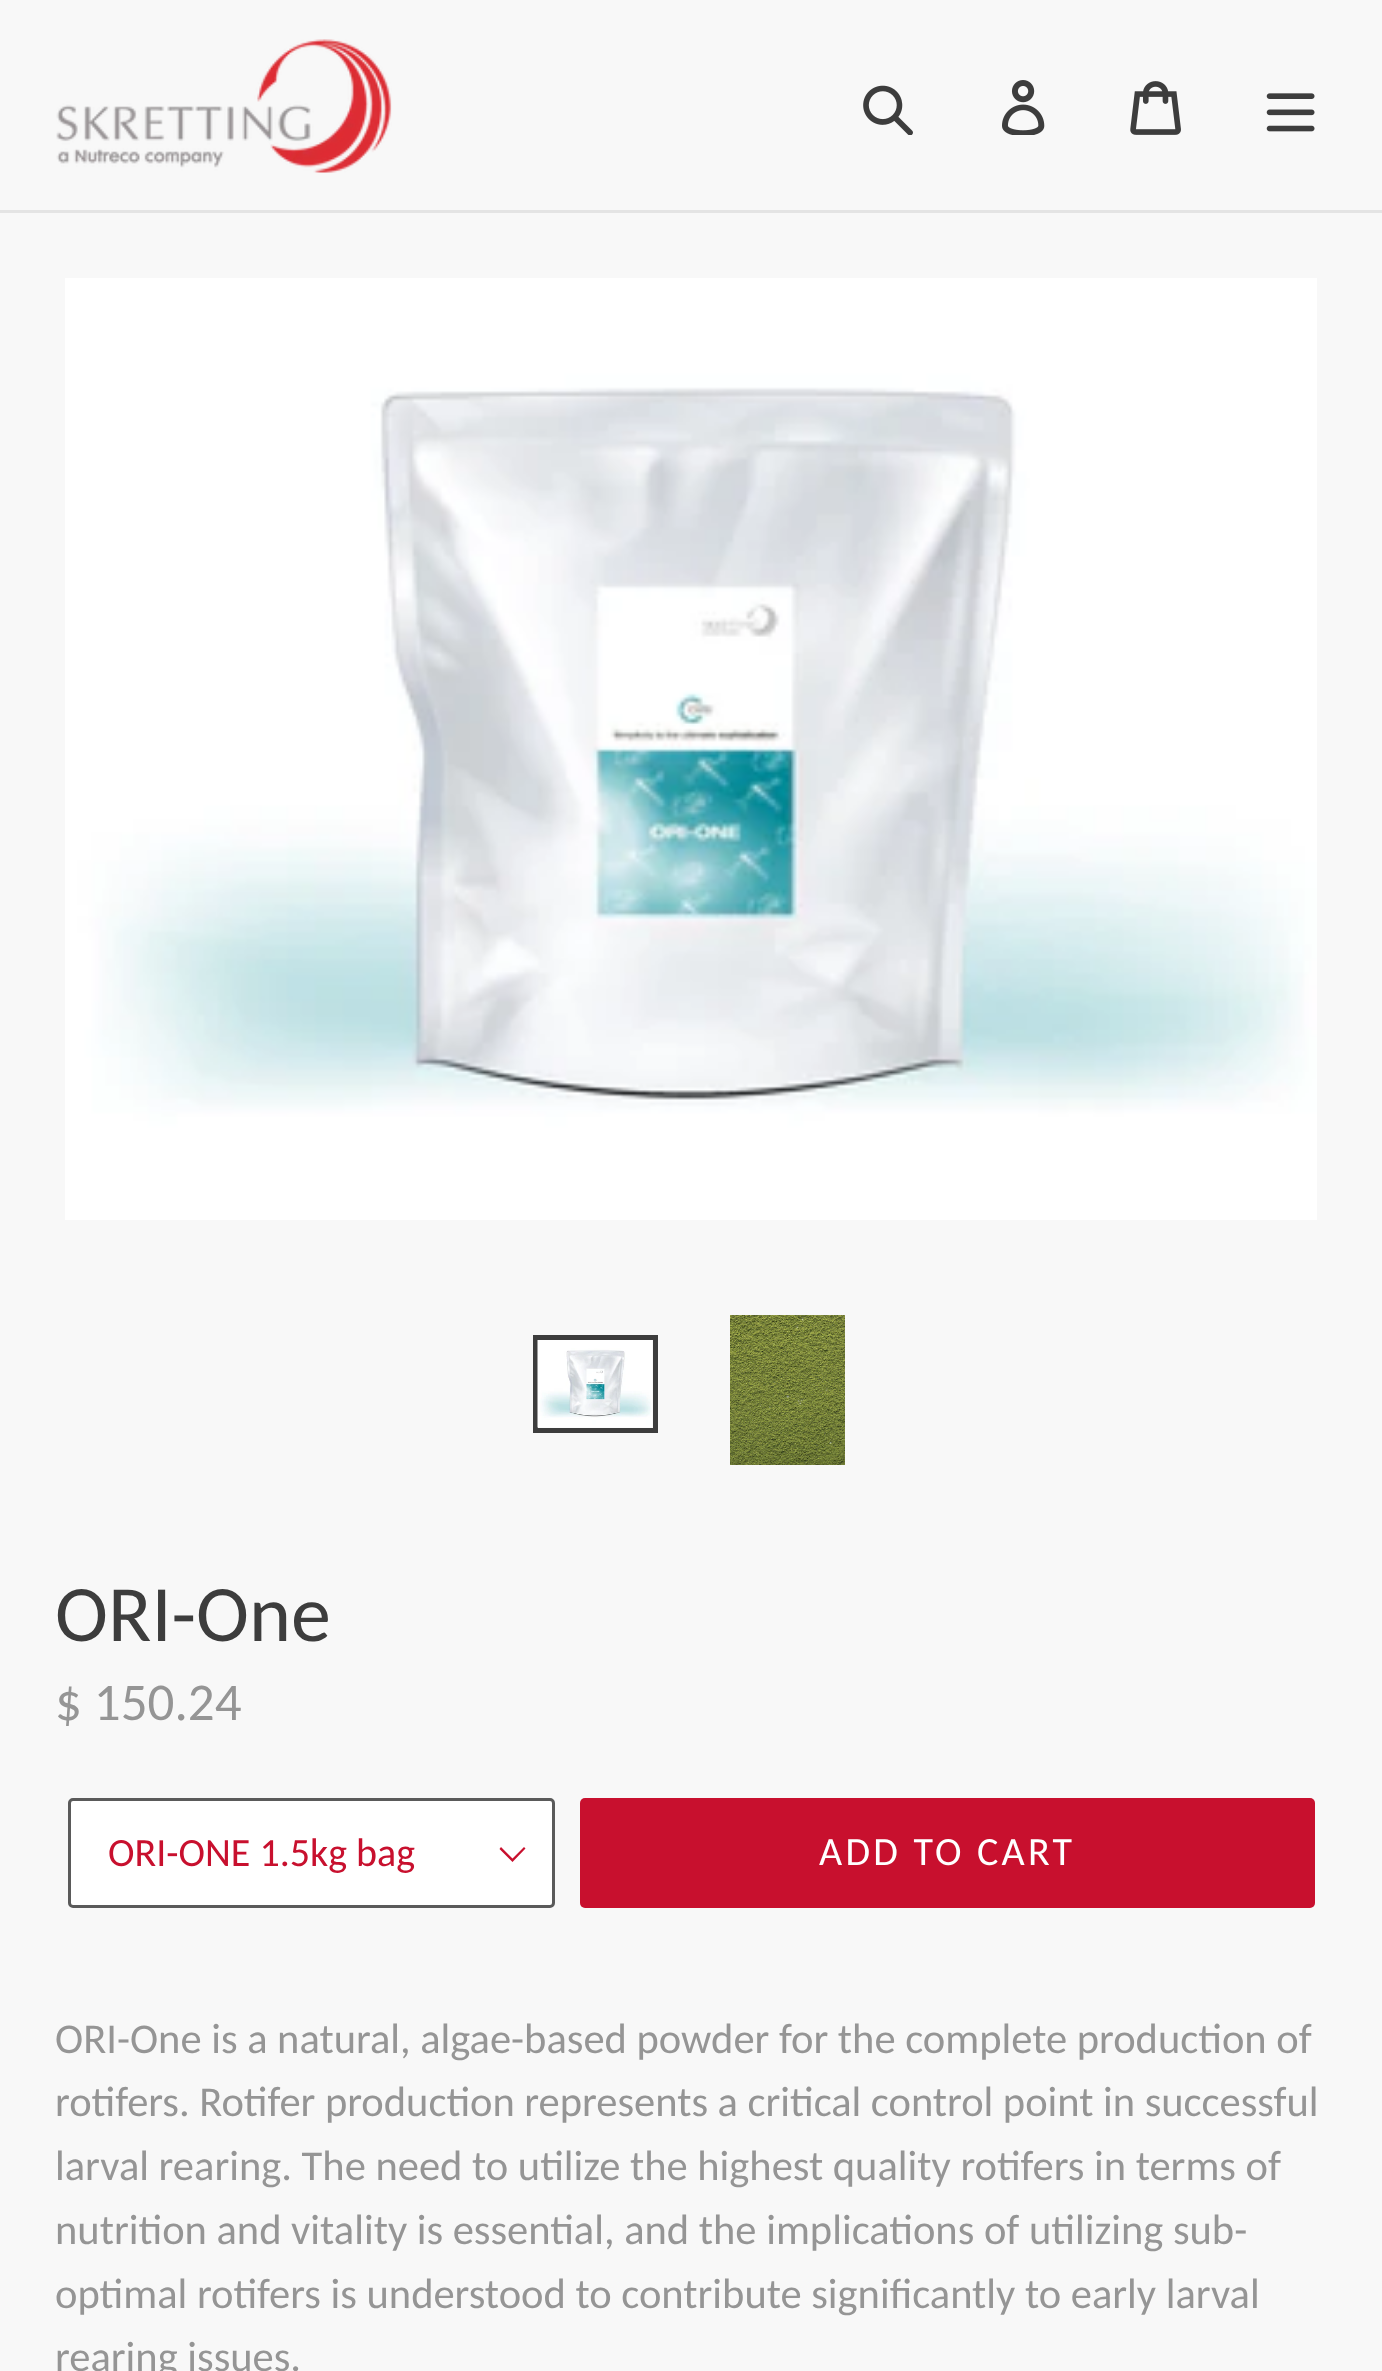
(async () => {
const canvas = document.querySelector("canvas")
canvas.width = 1382
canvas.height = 2371
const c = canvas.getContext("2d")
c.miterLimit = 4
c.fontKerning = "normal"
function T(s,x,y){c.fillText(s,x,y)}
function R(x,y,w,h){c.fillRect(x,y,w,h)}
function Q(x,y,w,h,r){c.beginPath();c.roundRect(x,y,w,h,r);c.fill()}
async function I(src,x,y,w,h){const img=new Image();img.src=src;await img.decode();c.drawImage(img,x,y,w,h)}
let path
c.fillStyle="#f8f8f8"
R(0,0,1382,2371)
c.fillStyle="#e4e4e4"
R(0,210,1382,3)
await I("1.png",56,39,336,134)
await I("2.png",863,85,50,50)
await I("3.png",1002,80,43,55)
await I("4.png",1130,81,51,54)
await I("5.png",1266,93,49,39)
await I("6.png",65,278,1252,942)
c.strokeStyle="#3d3d3d"
c.lineWidth=5
c.strokeRect(535.5,1337.5,120,93)
await I("7.png",537,1340,115,88)
await I("8.png",730,1315,115,150)
c.font="80px Carlito"
c.fillStyle="#3d3d3d"
T("ORI-One",55,1641)
c.font="53px Carlito"
c.fillStyle="#959595"
T("$ 150.24",55,1720)
c.fillStyle="#fff"
Q(68,1798,487,110,5)
c.fillStyle="#c8102e"
path = new Path2D("M512.5 1862l-13-13l1.5-2l11.5 11.5l11.5-11.5l1.5 1.5z")
c.fill(path)
c.beginPath()
c.roundRect(69.5,1799.5,484,107,3.5)
c.strokeStyle="#3d3d3dd9"
c.lineWidth=3
c.stroke()
c.font="40px Carlito"
T("ORI-ONE 1.5kg bag",108,1866)
Q(580,1798,735,110,5)
c.letterSpacing="3.25px"
c.fillStyle="#fff"
T("ADD TO CART",819,1865)
c.letterSpacing="0px"
c.font="42.5px Carlito"
c.fillStyle="#959595"
T("ORI-One is a natural, algae-based powder for the complete production of",55,2053)
c.wordSpacing="-0.1px"
T("rotifers. Rotifer production represents a critical control point in successful",55,2116)
c.wordSpacing="0px"
T("larval rearing. The need to utilize the highest quality rotifers in terms of",55,2180)
T("nutrition and vitality is essential, and the implications of utilizing sub-",55,2244)
T("optimal rotifers is understood to contribute significantly to early larval",55,2308)
T("rearing issues.",55,2371)
})()
